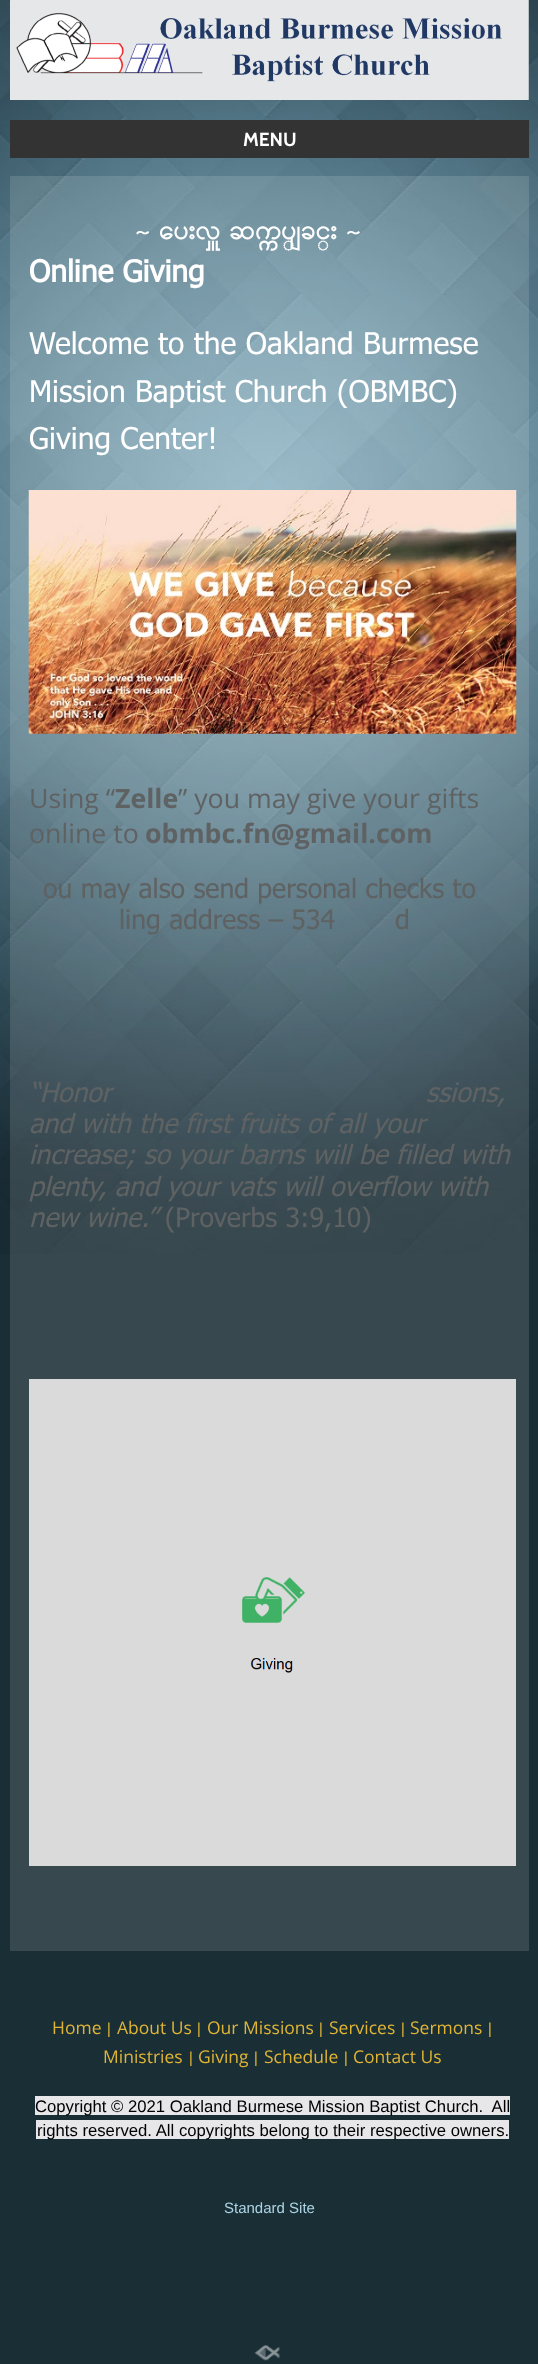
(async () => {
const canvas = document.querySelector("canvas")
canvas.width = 538
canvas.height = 2364
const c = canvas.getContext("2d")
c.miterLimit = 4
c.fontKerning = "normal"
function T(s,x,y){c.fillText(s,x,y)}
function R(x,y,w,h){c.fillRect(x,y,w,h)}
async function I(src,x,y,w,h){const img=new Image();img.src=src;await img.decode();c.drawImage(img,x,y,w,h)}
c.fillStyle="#1a2e35"
R(0,0,538,2364)
await I("1.png",0,0,538,1254)
await I("2.png",10,0,519,100)
c.fillStyle="#333"
R(10,120,519,38)
c.font="bold 19px Cabin"
c.fillStyle="#fff"
T("MENU",243,146)
c.fillStyle="#ffffff21"
R(10,176,519,1775)
c.wordSpacing="-1px"
c.font="bold 26.7px Padauk"
c.fillStyle="#fff"
T("~ ေပးလှူ ဆက္ကပ္ျခင္း ~",135,239)
c.wordSpacing="0px"
c.font="bold 30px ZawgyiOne"
T("Online Giving",29,282)
c.font="30px ZawgyiOne"
T("Welcome to the Oakland Burmese",29,354)
T("Mission Baptist Church (OBMBC)",29,402)
T("Giving Center!",29,449)
await I("3.png",28,490,489,244)
c.font="26.7px Open Sans"
c.fillStyle="#5f6263"
T("Using “",29,808)
c.font="bold 26.7px Open Sans"
T("Zelle",115,808)
c.font="26.7px Open Sans"
T("” you may give your gifts",178,808)
T("online to",29,843)
c.font="bold 26.7px Open Sans"
T("obmbc.fn@gmail.com",145,843)
c.font="26.7px ZawgyiOne"
T("ou may also send personal checks to",43,898)
T("ling address – 534",119,929)
T("d",395,929)
c.font="italic 26.7px ZawgyiOne"
T("“Honor",29,1102)
T("ssions,",426,1102)
T("and with the first fruits of all your",29,1133)
T("increase; so your barns will be filled with",29,1164)
T("plenty, and your vats will overflow with",29,1196)
T("new wine.”",29,1227)
c.font="26.7px ZawgyiOne"
T("(Proverbs 3:9,10)",165,1227)
c.fillStyle="#dadada"
R(29,1379,487,487)
await I("4.png",242,1577,63,96)
c.font="17.5px Open Sans"
c.fillStyle="#e0b536"
T("Home",52,2034)
c.font="15px ZawgyiOne"
T("|",106,2034)
c.font="17.5px Open Sans"
T("About Us",117,2034)
c.font="15px ZawgyiOne"
T("|",196,2034)
c.font="17.5px Open Sans"
T("Our Missions",207,2034)
c.font="15px ZawgyiOne"
T("|",318,2034)
c.font="17.5px Open Sans"
T("Services",329,2034)
c.font="15px ZawgyiOne"
T("|",400,2034)
c.font="17.5px Open Sans"
T("Sermons",410,2034)
c.font="15px ZawgyiOne"
T("|",487,2034)
c.font="17.5px Open Sans"
T("Ministries",103,2063)
c.font="15px ZawgyiOne"
T("|",188,2063)
c.font="17.5px Open Sans"
T("Giving",198,2063)
c.font="15px ZawgyiOne"
T("|",253,2063)
c.font="17.5px Open Sans"
T("Schedule",264,2063)
c.font="15px ZawgyiOne"
T("|",343,2063)
c.font="17.5px Open Sans"
T("Contact Us",353,2063)
c.fillStyle="#e7e7e9"
R(35,2096,475,19)
c.font="16.7px Arimo"
c.fillStyle="#000"
T("Copyright © 2021 Oakland Burmese Mission Baptist Church.  All",35,2112)
c.fillStyle="#e7e7e9"
R(36,2120,473,19)
c.fillStyle="#000"
T("rights reserved. All copyrights belong to their respective owners.",37,2136)
c.font="15px Liberation Sans"
c.fillStyle="#acd3e3"
T("Standard Site",224,2213)
await I("5.png",254,2345,26,16)
})()
